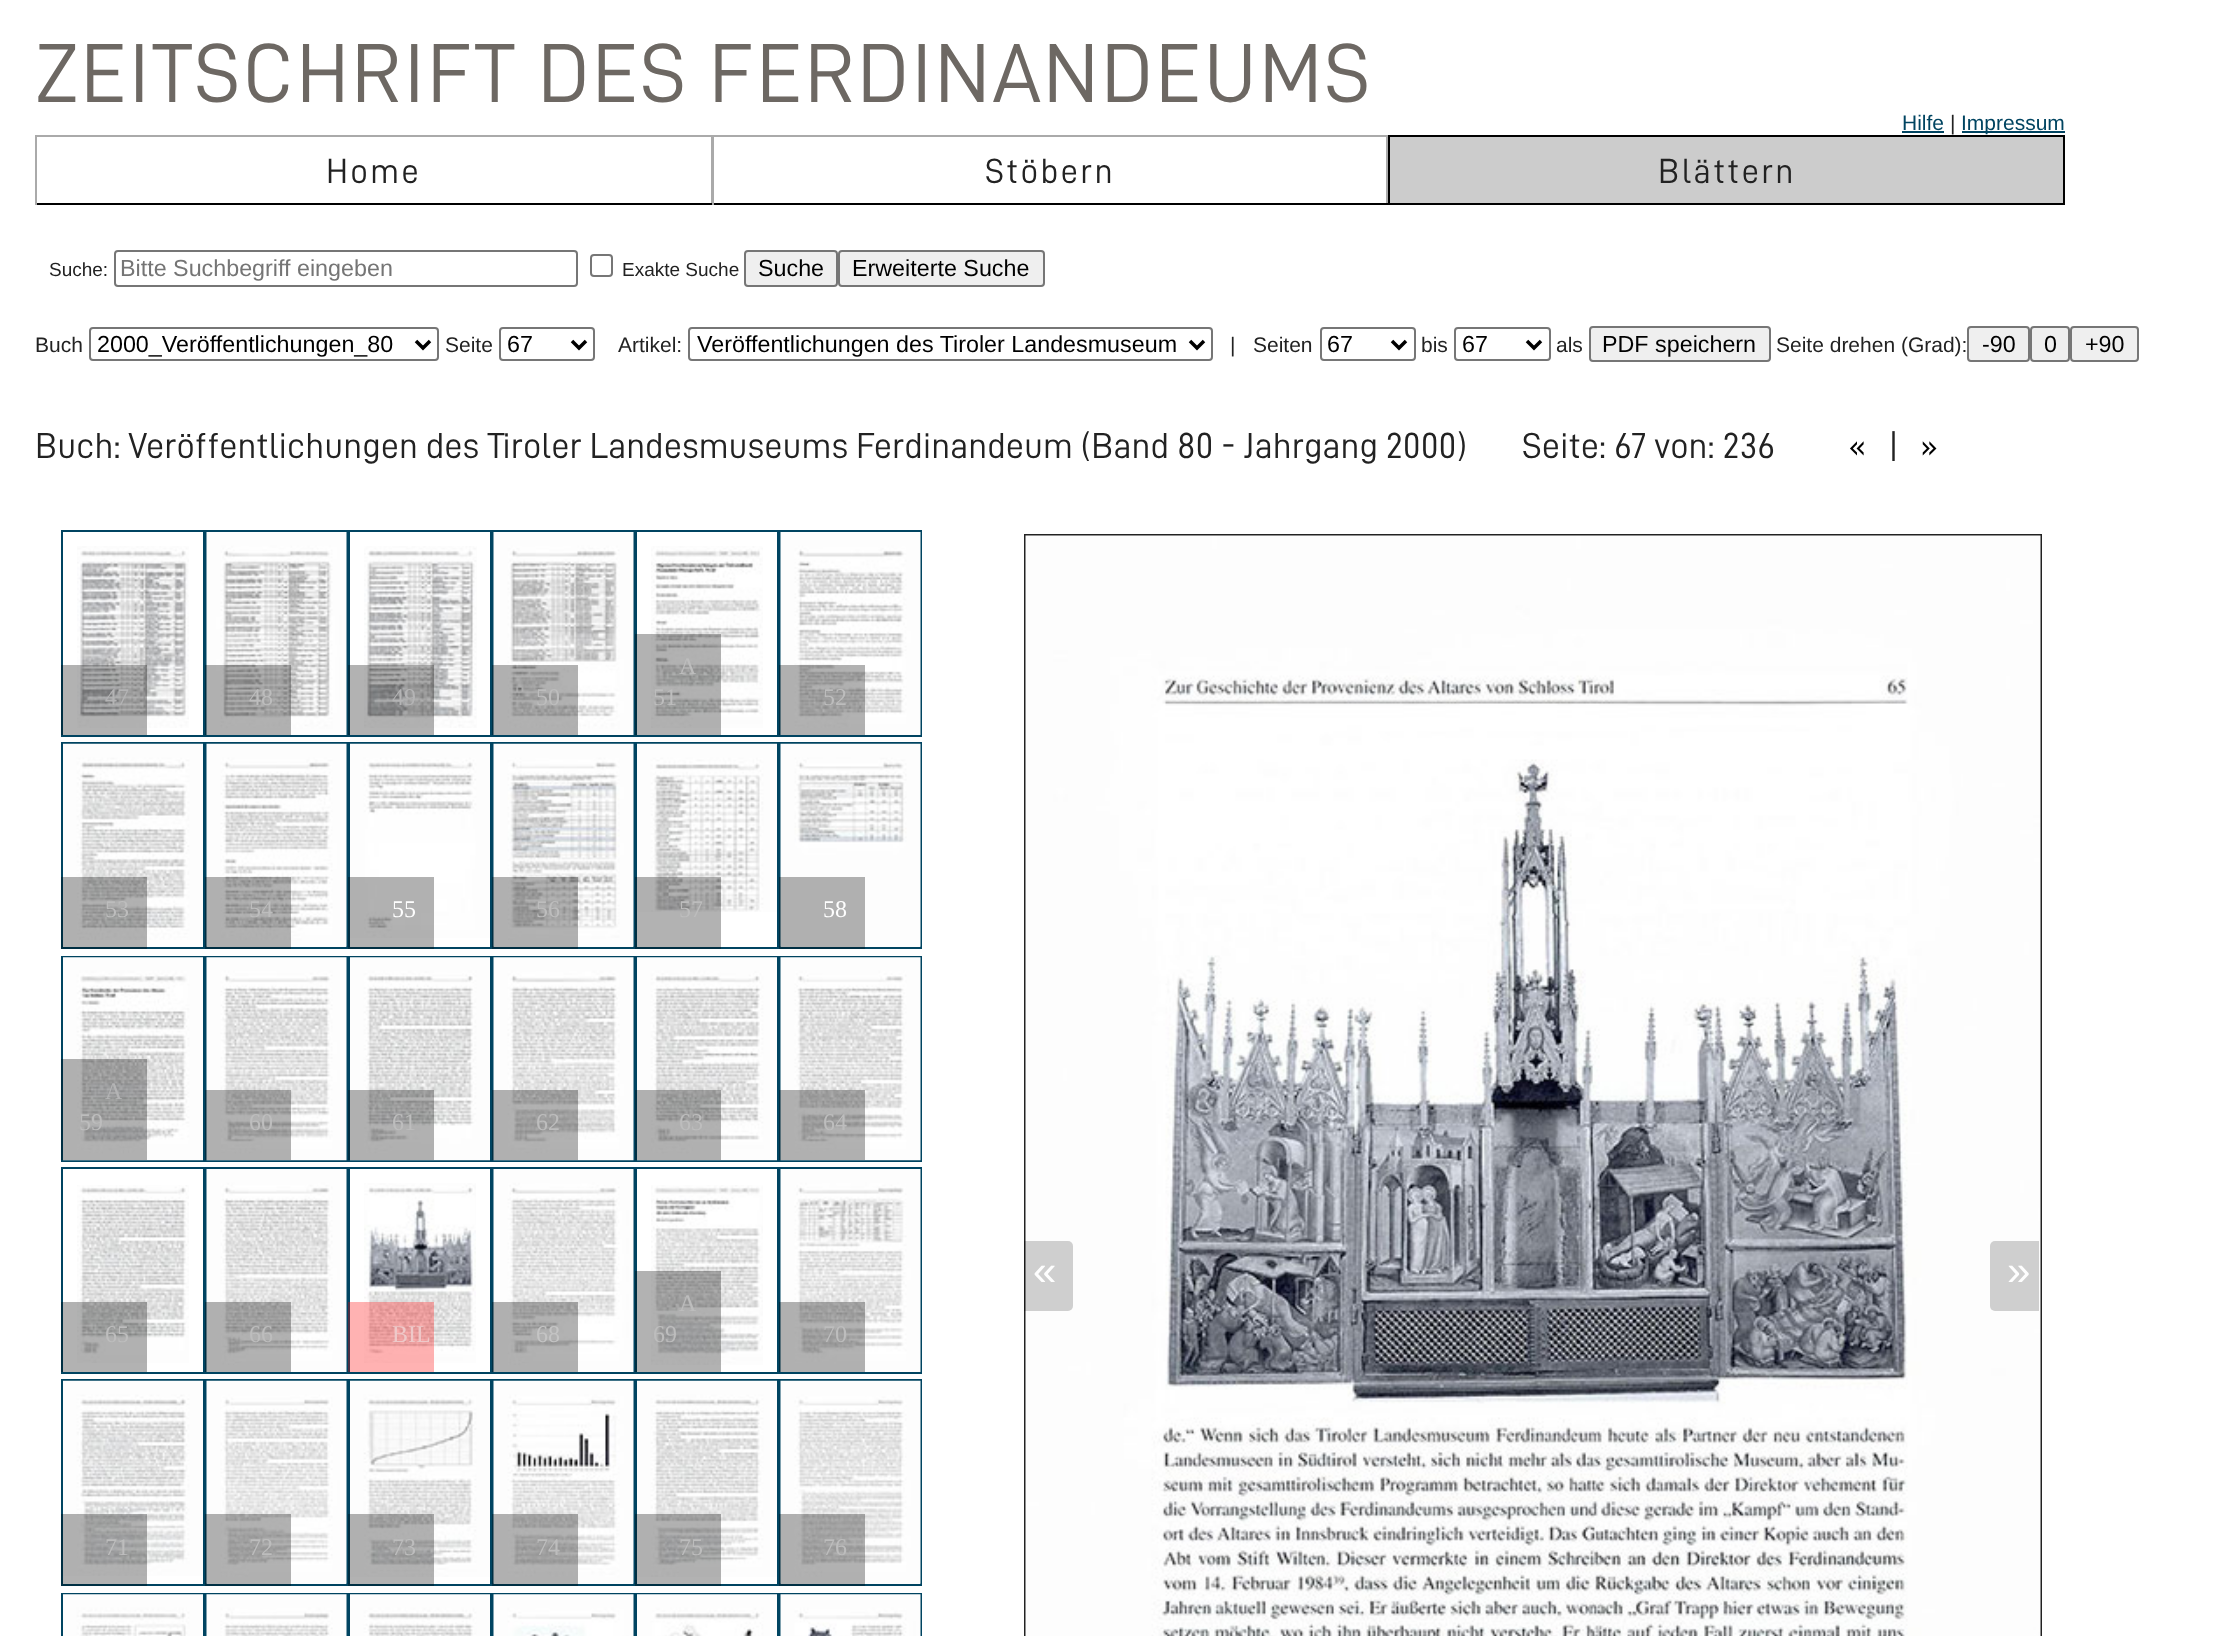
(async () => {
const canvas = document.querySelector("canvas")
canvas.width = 2235
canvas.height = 1636
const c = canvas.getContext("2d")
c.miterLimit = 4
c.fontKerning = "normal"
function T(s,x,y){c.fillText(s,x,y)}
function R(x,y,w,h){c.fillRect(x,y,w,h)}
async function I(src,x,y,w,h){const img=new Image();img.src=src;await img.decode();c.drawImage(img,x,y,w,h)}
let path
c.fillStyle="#fff"
R(0,0,2235,1636)
c.letterSpacing="2.25px"
c.font="84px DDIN"
c.fillStyle="#6d6863"
T("ZEITSCHRIFT DES FERDINANDEUMS",35,102)
c.letterSpacing="0px"
c.font="21px Liberation Sans"
c.fillStyle="#004461"
T("Hilfe",1902,130)
R(1902,131,42,2)
c.fillStyle="#222"
T("|",1950,130)
c.fillStyle="#004461"
R(1962,131,103,2)
T("Impressum",1961,130)
c.fillStyle="#aaa"
R(35,135,1353,2)
R(711,135,1,70)
c.fillStyle="#000"
R(35,203,677,2)
c.fillStyle="#aaa"
R(35,135,2,70)
c.letterSpacing="2.25px"
c.font="35px DDIN"
c.fillStyle="#222"
T("Home",326,183)
c.fillStyle="#aaa"
R(1386,135,2,70)
c.fillStyle="#000"
R(712,203,676,2)
c.fillStyle="#aaa"
R(712,135,2,70)
c.fillStyle="#222"
T("Stöbern",985,183)
c.fillStyle="#ccc"
c.beginPath()
c.rect(1389,136,675,68)
c.fill()
c.strokeStyle="#000"
c.lineWidth=2
c.stroke()
c.fillStyle="#222"
T("Blättern",1658,183)
c.letterSpacing="0px"
c.font="19px Liberation Sans"
T("Suche:",49,276)
c.beginPath()
c.roundRect(115,251,462,35,3)
c.strokeStyle="#767676"
c.stroke()
c.font="23.3px Liberation Sans"
c.fillStyle="#757575"
T("Bitte Suchbegriff eingeben",120,276)
c.beginPath()
c.roundRect(591,255,21,21,3)
c.stroke()
c.font="19px Liberation Sans"
c.fillStyle="#222"
T("Exakte Suche",622,276)
c.fillStyle="#efefef"
c.beginPath()
c.roundRect(745,251,92,35,3)
c.fill()
c.stroke()
c.font="23.3px Liberation Sans"
c.fillStyle="#000"
T("Suche",758,276)
c.fillStyle="#efefef"
c.beginPath()
c.roundRect(839,251,205,35,3)
c.fill()
c.stroke()
c.fillStyle="#000"
T("Erweiterte Suche",852,276)
c.font="21px Liberation Sans"
c.fillStyle="#222"
T("Buch",35,352)
c.beginPath()
c.roundRect(90,328,348,32,3)
c.stroke()
path = new Path2D("M416 341l7 7l7-7")
c.strokeStyle="#000"
c.lineWidth=3.5
c.stroke(path)
c.font="23.3px Liberation Sans"
c.fillStyle="#000"
T("2000_Veröffentlichungen_80",97,352)
c.font="21px Liberation Sans"
c.fillStyle="#222"
T("Seite",445,352)
c.beginPath()
c.roundRect(500,328,94,32,3)
c.strokeStyle="#767676"
c.lineWidth=2
c.stroke()
path = new Path2D("M572 341l7 7l7-7")
c.strokeStyle="#000"
c.lineWidth=3.5
c.stroke(path)
c.font="23.3px Liberation Sans"
c.fillStyle="#000"
T("67",507,352)
c.font="21px Liberation Sans"
c.fillStyle="#222"
T("Artikel:",618,352)
c.beginPath()
c.roundRect(689,328,523,32,3)
c.strokeStyle="#767676"
c.lineWidth=2
c.stroke()
path = new Path2D("M1190 341l7 7l7-7")
c.strokeStyle="#000"
c.lineWidth=3.5
c.stroke(path)
c.font="23.3px Liberation Sans"
c.fillStyle="#000"
T("Veröffentlichungen des Tiroler Landesmuseum",697,352)
c.font="21px Liberation Sans"
c.fillStyle="#222"
T("|",1230,352)
T("Seiten",1253,352)
c.beginPath()
c.roundRect(1321,328,94,32,3)
c.strokeStyle="#767676"
c.lineWidth=2
c.stroke()
path = new Path2D("M1392 341l7 7l7-7")
c.strokeStyle="#000"
c.lineWidth=3.5
c.stroke(path)
c.font="23.3px Liberation Sans"
c.fillStyle="#000"
T("67",1327,352)
c.font="21px Liberation Sans"
c.fillStyle="#222"
T("bis",1421,352)
c.beginPath()
c.roundRect(1455,328,95,32,3)
c.strokeStyle="#767676"
c.lineWidth=2
c.stroke()
path = new Path2D("M1527 341l7 7l7-7")
c.strokeStyle="#000"
c.lineWidth=3.5
c.stroke(path)
c.font="23.3px Liberation Sans"
c.fillStyle="#000"
T("67",1462,352)
c.font="21px Liberation Sans"
c.fillStyle="#222"
T("als",1556,352)
c.fillStyle="#efefef"
c.beginPath()
c.roundRect(1590,327,180,34,3)
c.fill()
c.strokeStyle="#767676"
c.lineWidth=2
c.stroke()
c.font="23.3px Liberation Sans"
c.fillStyle="#000"
T("PDF speichern",1602,352)
c.font="21px Liberation Sans"
c.fillStyle="#222"
T("Seite drehen (Grad):",1776,352)
c.fillStyle="#efefef"
c.beginPath()
c.roundRect(1968,327,61,34,3)
c.fill()
c.stroke()
c.font="23.3px Liberation Sans"
c.fillStyle="#000"
T("-90",1982,352)
c.fillStyle="#efefef"
c.beginPath()
c.roundRect(2031,327,38,34,3)
c.fill()
c.stroke()
c.fillStyle="#000"
T("0",2044,352)
c.fillStyle="#efefef"
c.beginPath()
c.roundRect(2071,327,67,34,3)
c.fill()
c.stroke()
c.fillStyle="#000"
T("+90",2085,352)
c.font="36.3px DDIN"
c.fillStyle="#222"
T("Buch: Veröffentlichungen des Tiroler Landesmuseums Ferdinandeum (Band 80 - Jahrgang 2000)       Seite: 67 von: 236",35,458)
c.fillStyle="#000"
T("«",1849,458)
c.fillStyle="#222"
T("|",1888,458)
c.fillStyle="#000"
T("»",1920,458)
c.strokeStyle="#004461"
c.strokeRect(62,531,142,205)
await I("1.png",77,546,112,182)
c.fillStyle="#0000004d"
R(61,665,86,70)
c.font="24px Liberation Serif"
c.fillStyle="#b4b4b5"
T("47",105,705)
c.strokeRect(206,531,141,205)
await I("2.png",206,532,141,203)
c.fillStyle="#0000004d"
R(205,665,86,70)
c.fillStyle="#bdbdbd"
T("48",249,705)
c.strokeRect(349,531,142,205)
await I("3.png",364,546,113,182)
c.fillStyle="#0000004d"
R(348,665,86,70)
c.fillStyle="#b4b4b5"
T("49",392,705)
c.strokeRect(493,531,141,205)
await I("4.png",493,532,141,203)
c.fillStyle="#0000004d"
R(492,665,86,70)
c.fillStyle="#bdbdbd"
T("50",536,705)
c.strokeRect(636,531,142,205)
await I("5.png",651,546,112,182)
c.fillStyle="#0000004d"
R(635,634,86,101)
c.fillStyle="#bdbdbd"
T("A",679,674)
T("51",653,705)
c.strokeRect(780,531,141,205)
await I("6.png",780,532,141,203)
c.fillStyle="#0000004d"
R(779,665,86,70)
c.fillStyle="#bdbdbd"
T("52",823,705)
c.strokeRect(62,743,142,205)
await I("7.png",63,743,140,197)
c.fillStyle="#0000004d"
R(61,877,86,72)
c.fillStyle="#bdbdbd"
T("53",105,917)
c.strokeRect(206,743,141,205)
await I("8.png",206,743,141,204)
c.fillStyle="#0000004d"
R(205,877,86,72)
c.fillStyle="#bdbdbd"
T("54",249,917)
c.strokeRect(349,743,142,205)
await I("9.png",350,743,140,195)
c.fillStyle="#0000004d"
R(348,877,86,72)
c.fillStyle="#fefefe"
T("55",392,917)
c.strokeRect(493,743,141,205)
await I("10.png",493,743,141,204)
c.fillStyle="#0000004d"
R(492,877,86,72)
c.fillStyle="#bdbdbd"
T("56",536,917)
c.strokeRect(636,743,142,205)
await I("11.png",637,743,140,169)
c.fillStyle="#0000004d"
R(635,877,86,72)
c.fillStyle="#bdbdbd"
T("57",679,917)
c.strokeRect(780,743,141,205)
await I("12.png",780,743,141,204)
c.fillStyle="#0000004d"
R(779,877,86,72)
c.fillStyle="#fefefe"
T("58",823,917)
c.strokeRect(62,957,142,204)
await I("13.png",63,957,140,204)
c.fillStyle="#0000004d"
R(61,1059,86,101)
c.fillStyle="#b4b4b5"
T("A",105,1099)
c.fillStyle="#bdbdbd"
T("59",79,1130)
c.strokeRect(206,957,141,204)
await I("14.png",206,957,141,204)
c.fillStyle="#0000004d"
R(205,1090,86,70)
c.fillStyle="#bdbdbd"
T("60",249,1130)
c.strokeRect(349,957,142,204)
await I("15.png",350,957,140,204)
c.fillStyle="#0000004d"
R(348,1090,86,70)
c.fillStyle="#bdbdbd"
T("61",392,1130)
c.strokeRect(493,957,141,204)
await I("16.png",493,957,141,204)
c.fillStyle="#0000004d"
R(492,1090,86,70)
c.fillStyle="#bdbdbd"
T("62",536,1130)
c.strokeRect(636,957,142,204)
await I("17.png",637,957,140,204)
c.fillStyle="#0000004d"
R(635,1090,86,70)
c.fillStyle="#bdbdbd"
T("63",679,1130)
c.strokeRect(780,957,141,204)
await I("18.png",780,957,141,204)
c.fillStyle="#0000004d"
R(779,1090,86,70)
c.fillStyle="#bdbdbd"
T("64",823,1130)
c.strokeRect(62,1168,142,205)
await I("19.png",77,1185,112,178)
c.fillStyle="#0000004d"
R(61,1302,86,70)
c.fillStyle="#bdbdbd"
T("65",105,1342)
c.strokeRect(206,1168,141,205)
await I("20.png",206,1169,141,203)
c.fillStyle="#0000004d"
R(205,1302,86,70)
c.fillStyle="#bdbdbd"
T("66",249,1342)
c.strokeRect(349,1168,142,205)
await I("21.png",364,1183,112,180)
c.fillStyle="#ff00004d"
R(348,1302,86,70)
c.fillStyle="#eec9c9"
T("BIL",392,1342)
c.strokeRect(493,1168,141,205)
await I("22.png",493,1169,141,203)
c.fillStyle="#0000004d"
R(492,1302,86,70)
c.fillStyle="#c4c4c4"
T("68",536,1342)
c.strokeRect(636,1168,142,205)
await I("23.png",651,1185,112,180)
c.fillStyle="#0000004d"
R(635,1271,86,101)
c.fillStyle="#bdbdbd"
T("A",679,1311)
T("69",653,1342)
c.strokeRect(780,1168,141,205)
await I("24.png",780,1169,141,203)
c.fillStyle="#0000004d"
R(779,1302,86,70)
c.fillStyle="#bdbdbd"
T("70",823,1342)
c.strokeRect(62,1380,142,205)
await I("25.png",63,1380,140,196)
c.fillStyle="#0000004d"
R(61,1514,86,72)
c.fillStyle="#bdbdbd"
T("71",105,1555)
c.strokeRect(206,1380,141,205)
await I("26.png",206,1380,141,204)
c.fillStyle="#0000004d"
R(205,1514,86,72)
c.fillStyle="#bdbdbd"
T("72",249,1555)
c.strokeRect(349,1380,142,205)
await I("27.png",350,1380,140,197)
c.fillStyle="#0000004d"
R(348,1514,86,72)
c.fillStyle="#bdbdbd"
T("73",392,1555)
c.strokeRect(493,1380,141,205)
await I("28.png",493,1380,141,204)
c.fillStyle="#0000004d"
R(492,1514,86,72)
c.fillStyle="#bdbdbd"
T("74",536,1555)
c.strokeRect(636,1380,142,205)
await I("29.png",637,1380,140,197)
c.fillStyle="#0000004d"
R(635,1514,86,72)
c.fillStyle="#bdbdbd"
T("75",679,1555)
c.strokeRect(780,1380,141,205)
await I("30.png",780,1380,141,204)
c.fillStyle="#0000004d"
R(779,1514,86,72)
c.fillStyle="#bdbdbd"
T("76",823,1555)
c.strokeRect(62,1594,142,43)
await I("31.png",63,1594,140,42)
c.strokeRect(206,1594,141,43)
await I("32.png",206,1594,141,42)
c.strokeRect(349,1594,142,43)
await I("33.png",350,1594,140,42)
c.strokeRect(493,1594,141,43)
await I("34.png",493,1594,141,42)
c.strokeRect(636,1594,142,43)
await I("35.png",637,1594,140,42)
c.strokeRect(780,1594,141,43)
await I("36.png",780,1594,141,42)
c.strokeStyle="#222"
c.strokeRect(1025,535,1016,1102)
await I("37.png",1025,535,1016,1101)
c.fillStyle="#0000002e"
c.beginPath()
c.roundRect(1024,1241,49,70,[0,5,5,0])
c.fill()
c.font="42px Liberation Sans"
c.fillStyle="#fefefe"
T("«",1033,1285)
c.fillStyle="#cfcfcf"
c.beginPath()
c.roundRect(1990,1241,49,70,[5,0,0,5])
c.fill()
c.fillStyle="#fefefe"
T("»",2007,1285)
})()
